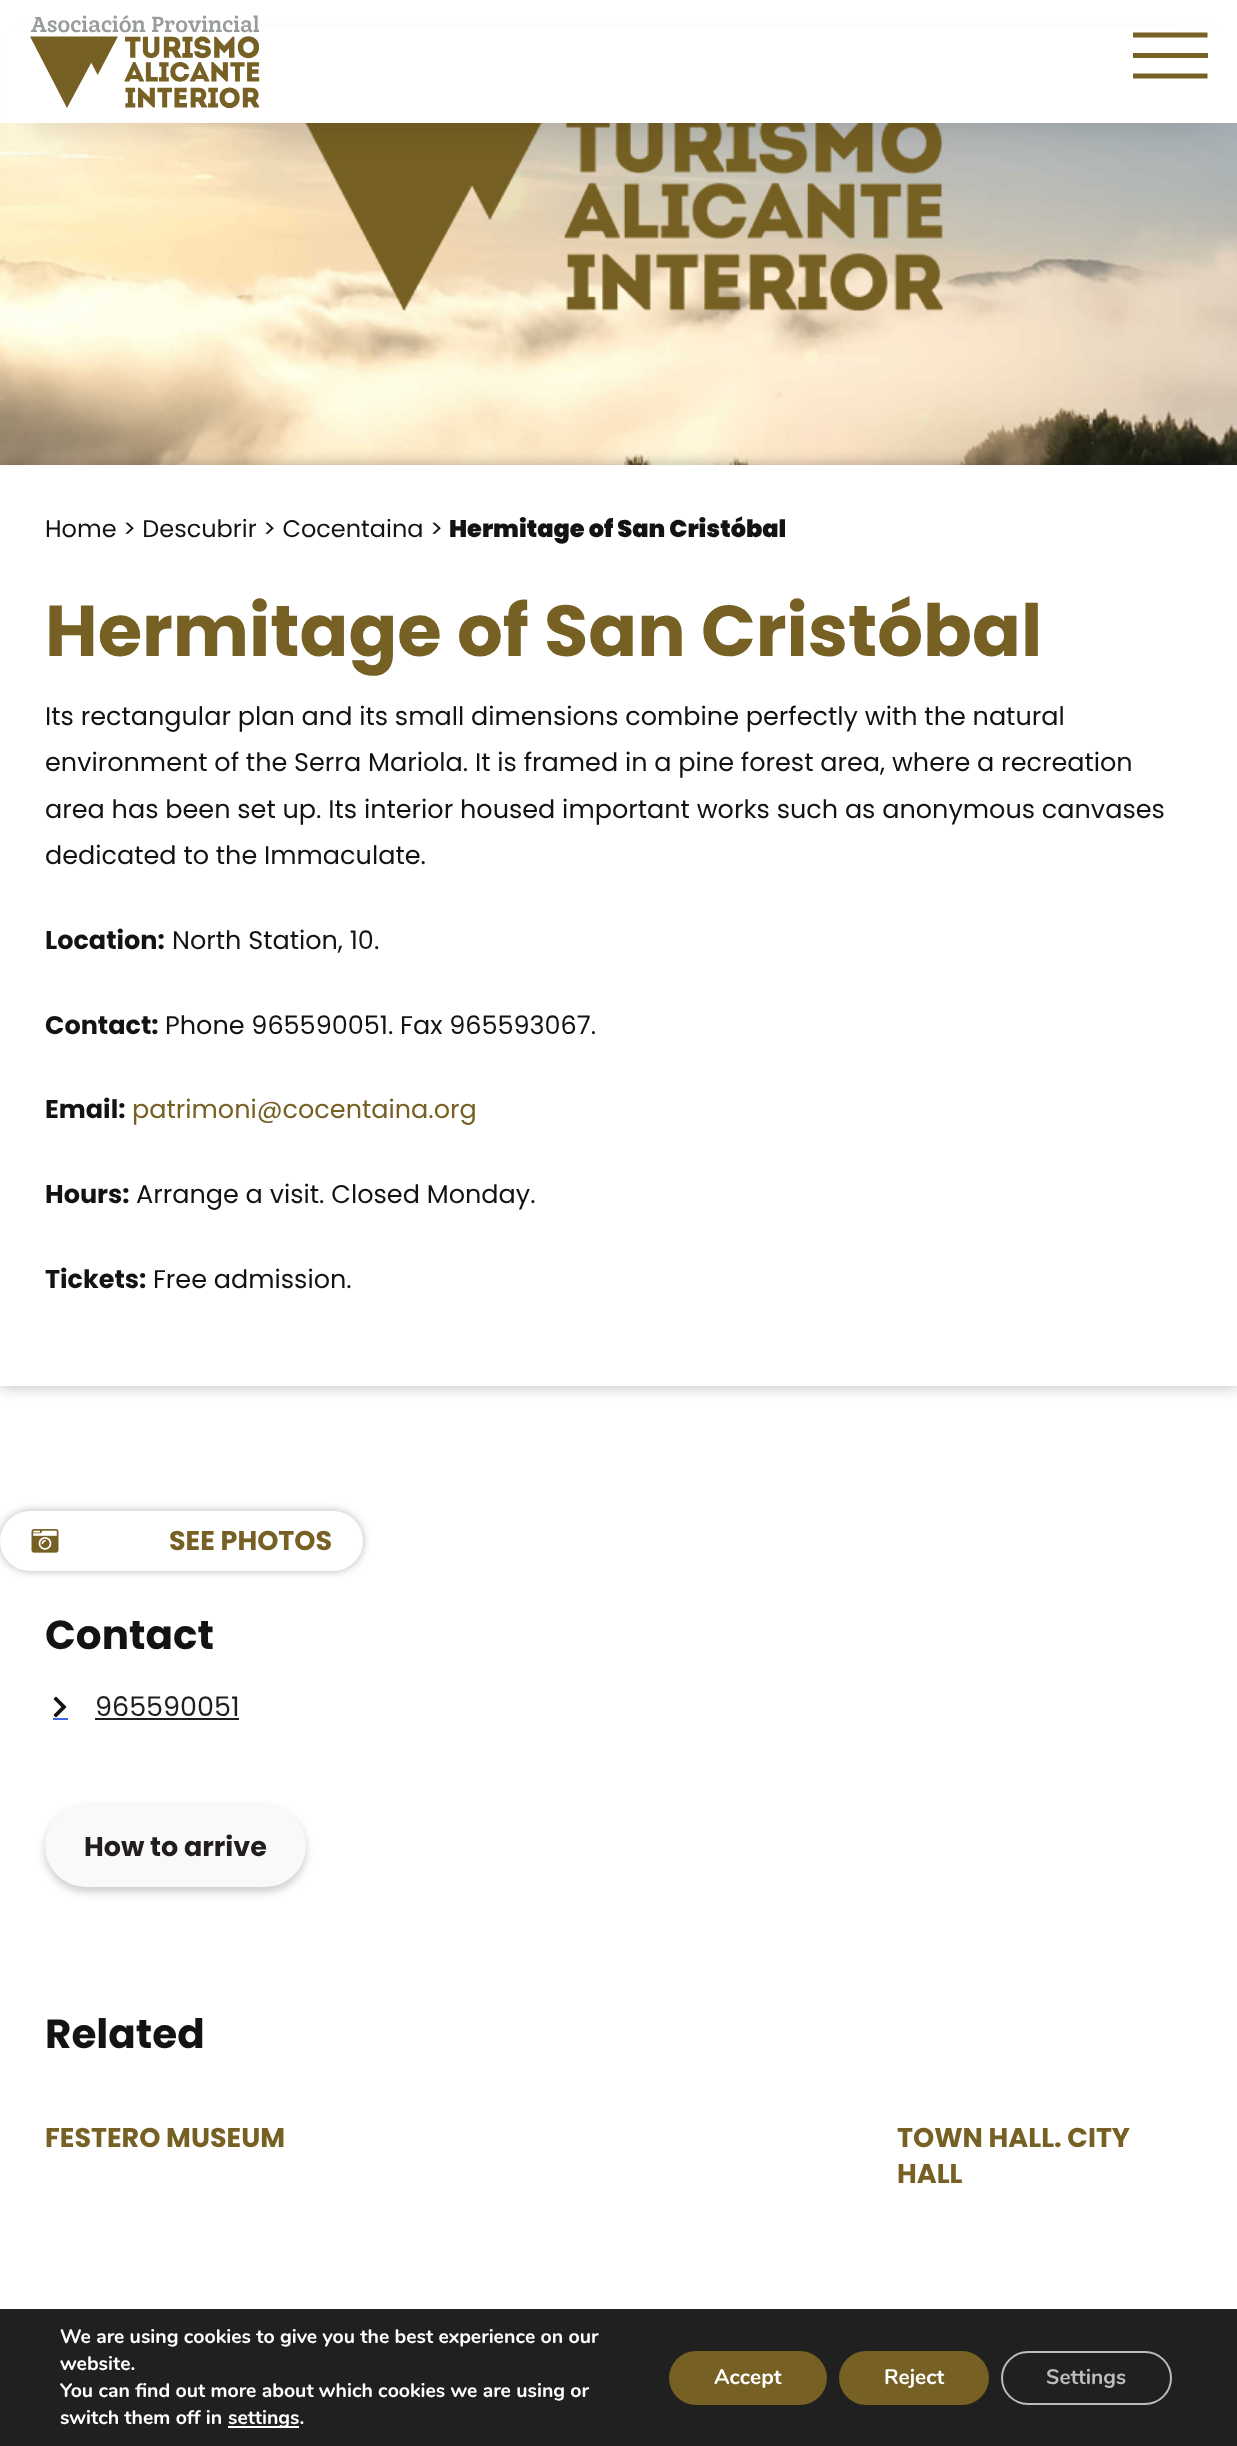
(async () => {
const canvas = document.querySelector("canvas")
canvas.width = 1237
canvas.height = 2446
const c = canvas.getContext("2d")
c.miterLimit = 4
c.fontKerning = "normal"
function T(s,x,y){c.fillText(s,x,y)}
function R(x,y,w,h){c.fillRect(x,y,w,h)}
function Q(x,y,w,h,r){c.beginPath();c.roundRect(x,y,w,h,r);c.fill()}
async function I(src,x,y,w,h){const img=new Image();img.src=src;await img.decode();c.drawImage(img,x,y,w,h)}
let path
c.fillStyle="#fff"
R(0,0,1237,2446)
await I("2.png",0,123,1237,342)
c.fillStyle="#00000029"
c.filter="blur(19px)"
c.beginPath()
c.rect(29,57,1180,66)
c.fill()
c.filter="none"
c.fillStyle="#fff"
R(1,28,1236,95)
await I("1.png",30,15,230,93)
c.save()
c.beginPath()
c.rect(1133,18,75,75)
c.clip()
path = new Path2D("M1207.5 35h-75")
c.strokeStyle="#766023"
c.lineWidth=5.2
c.stroke(path)
c.restore()
c.fillStyle="#766023"
R(1133,53,75,5)
c.save()
c.beginPath()
c.rect(1133,18,75,75)
c.clip()
path = new Path2D("M1207.5 76h-75")
c.strokeStyle="#766023"
c.lineWidth=5.2
c.stroke(path)
c.restore()
c.save()
path = new Path2D("M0 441h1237v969h-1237zm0 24h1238v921h-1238z")
c.clip(path,"evenodd")
c.fillStyle="#0000004a"
c.filter="blur(7.5px)"
c.beginPath()
c.rect(0,465,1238,921)
c.fill()
c.filter="none"
c.restore()
c.font="24px Poppins"
c.fillStyle="#131313"
T("Home > Descubrir > Cocentaina >",45,537)
c.font="900 24px Poppins"
T("Hermitage of San Cristóbal",449,537)
c.font="bold 72px Poppins"
c.fillStyle="#766023"
T("Hermitage of San Cristóbal",45,656)
c.font="25.5px Poppins"
c.fillStyle="#131313"
T("Its rectangular plan and its small dimensions combine perfectly with the natural",45,725)
T("environment of the Serra Mariola. It is framed in a pine forest area, where a recreation",45,771)
T("area has been set up. Its interior housed important works such as anonymous canvases",45,818)
T("dedicated to the Immaculate.",45,864)
c.font="bold 25.5px Poppins"
T("Location:",45,949)
c.font="25.5px Poppins"
T("North Station, 10.",172,949)
c.font="bold 25.5px Poppins"
T("Contact:",45,1034)
c.font="25.5px Poppins"
T("Phone 965590051. Fax 965593067.",165,1034)
c.font="bold 25.5px Poppins"
T("Email:",45,1118)
c.font="25.5px Poppins"
c.fillStyle="#766023"
T("patrimoni@cocentaina.org",132,1118)
c.font="bold 25.5px Poppins"
c.fillStyle="#131313"
T("Hours:",45,1203)
c.font="25.5px Poppins"
T("Arrange a visit. Closed Monday.",136,1203)
c.font="bold 25.5px Poppins"
T("Tickets:",45,1288)
c.font="25.5px Poppins"
T("Free admission.",153,1288)
c.fillStyle="#0000004a"
c.filter="blur(4.5px)"
c.beginPath()
c.roundRect(0,1511,363,60,30)
c.fill()
c.filter="none"
c.fillStyle="#fff"
c.beginPath()
c.roundRect(1,1512,361,58,29)
c.fill()
c.strokeStyle="#fff"
c.lineWidth=2
c.stroke()
await I("3.png",31,1529,28,24)
c.font="bold 27px Poppins"
c.fillStyle="#766023"
T("SEE PHOTOS",169,1550)
c.font="bold 40.5px Poppins"
c.fillStyle="#131313"
T("Contact",45,1649)
await I("4.png",53,1696,14,22)
c.fillStyle="#4169e1"
R(53,1718,15,2)
c.font="27px Poppins"
c.fillStyle="#221e1f"
T("965590051",95,1716)
R(95,1718,144,2)
c.fillStyle="#00000033"
c.filter="blur(4.5px)"
c.beginPath()
c.roundRect(45,1809,261,83,41.5)
c.fill()
c.filter="none"
c.fillStyle="#f9f9f9"
Q(45,1805,261,82,41)
c.font="bold 27px Poppins"
c.fillStyle="#221e1f"
T("How to arrive",84,1856)
c.font="bold 40.5px Poppins"
c.fillStyle="#131313"
T("Related",45,2048)
c.font="bold 27px Poppins"
c.fillStyle="#766023"
T("FESTERO MUSEUM",45,2147)
T("TOWN HALL. CITY",897,2147)
T("HALL",897,2183)
c.fillStyle="#202020"
R(0,2309,1237,137)
c.font="bold 19.5px Nunito"
c.fillStyle="#fff"
T("We are using cookies to give you the best experience on our",60,2343)
T("website.",60,2370)
T("You can find out more about which cookies we are using or",60,2397)
T("switch them off in",60,2424)
R(228,2426,71,2)
T("settings.",228,2424)
c.fillStyle="#766023"
Q(669,2351,158,54,27)
c.font="bold 21px Nunito"
c.fillStyle="#fff"
T("Accept",714,2384)
c.fillStyle="#766023"
Q(839,2351,150,54,27)
c.fillStyle="#fff"
T("Reject",884,2384)
c.beginPath()
c.roundRect(1002,2352,169,52,26)
c.strokeStyle="#bcbcbc"
c.stroke()
c.fillStyle="#bcbcbc"
T("Settings",1046,2384)
})()
